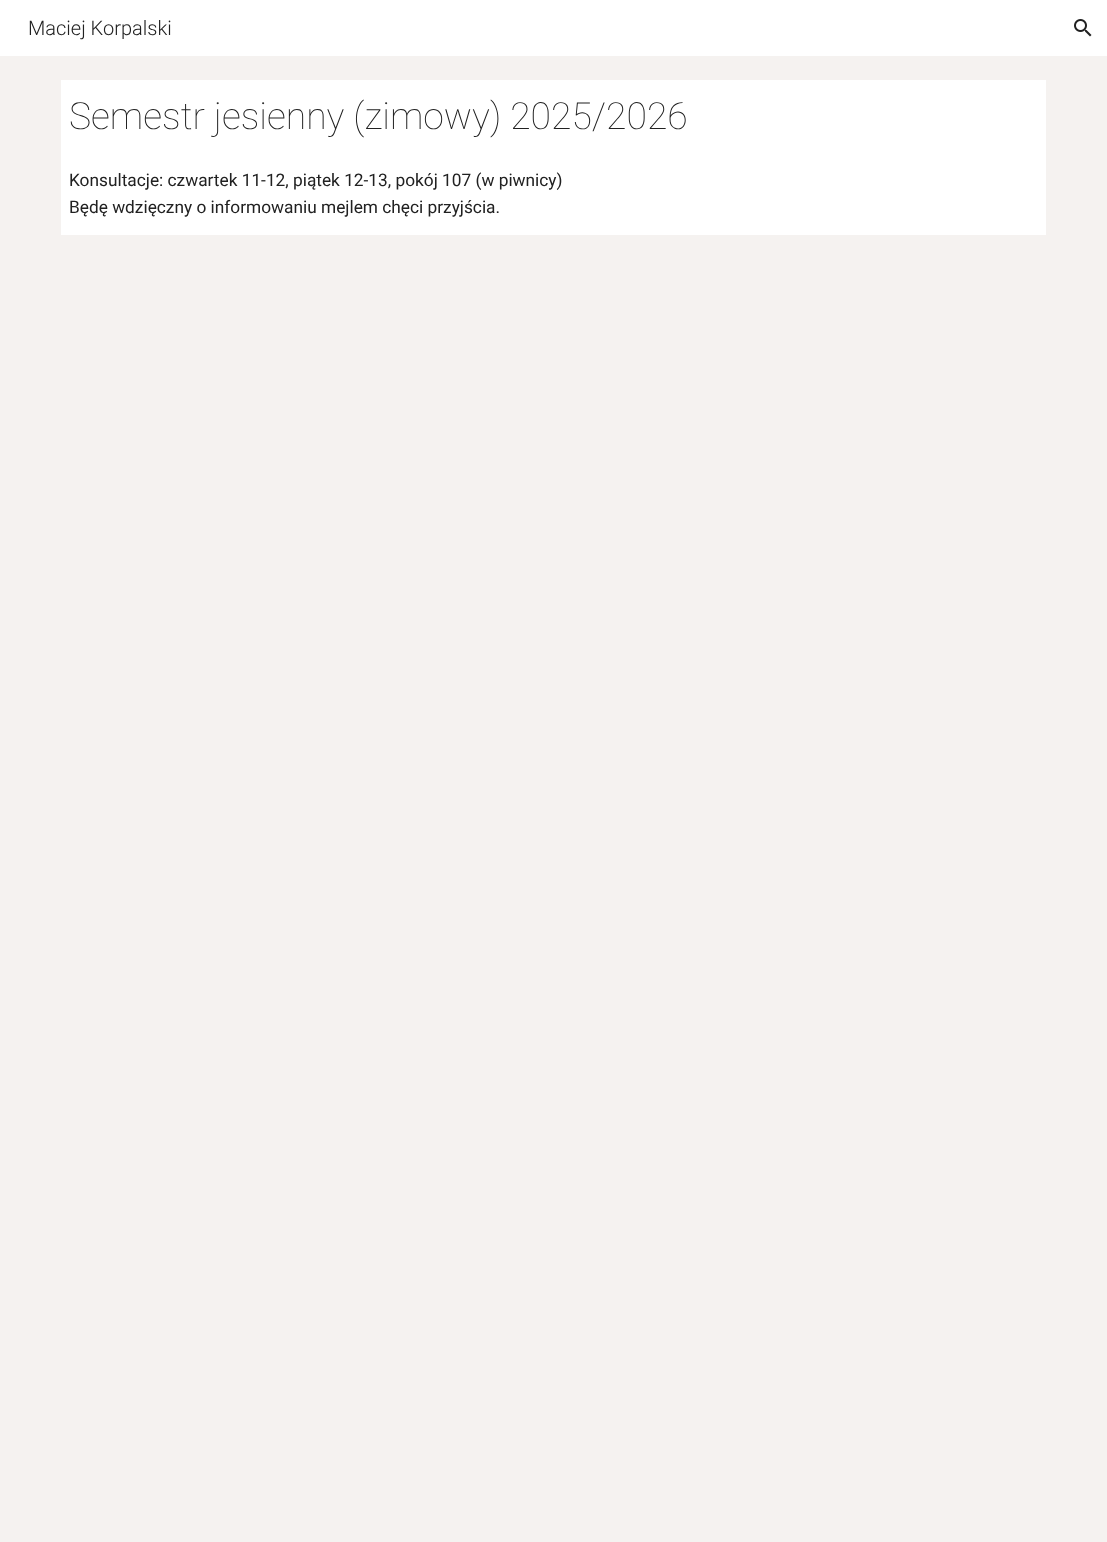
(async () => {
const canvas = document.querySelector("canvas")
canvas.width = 1107
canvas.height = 1542
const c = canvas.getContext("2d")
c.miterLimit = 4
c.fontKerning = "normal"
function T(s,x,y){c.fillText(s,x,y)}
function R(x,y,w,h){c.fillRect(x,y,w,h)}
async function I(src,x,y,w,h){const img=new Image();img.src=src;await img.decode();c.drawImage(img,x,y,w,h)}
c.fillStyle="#f5f2f0"
R(0,0,1107,1542)
c.fillStyle="#fff"
R(0,0,1107,56)
c.font="300 20px Roboto"
c.fillStyle="#212121"
T("Maciej Korpalski",28,35)
await I("1.png",1074,19,18,18)
c.fillStyle="#fff"
R(61,80,985,155)
c.font="100 37.3px Roboto"
c.fillStyle="#212121"
T("Semestr jesienny (zimowy) 2025/2026",69,129)
c.font="17.3px Roboto"
T("Konsultacje: czwartek 11-12, piątek 12-13, pokój 107 (w piwnicy)",69,186)
T("Będę wdzięczny o informowaniu mejlem chęci przyjścia.",69,213)
})()
